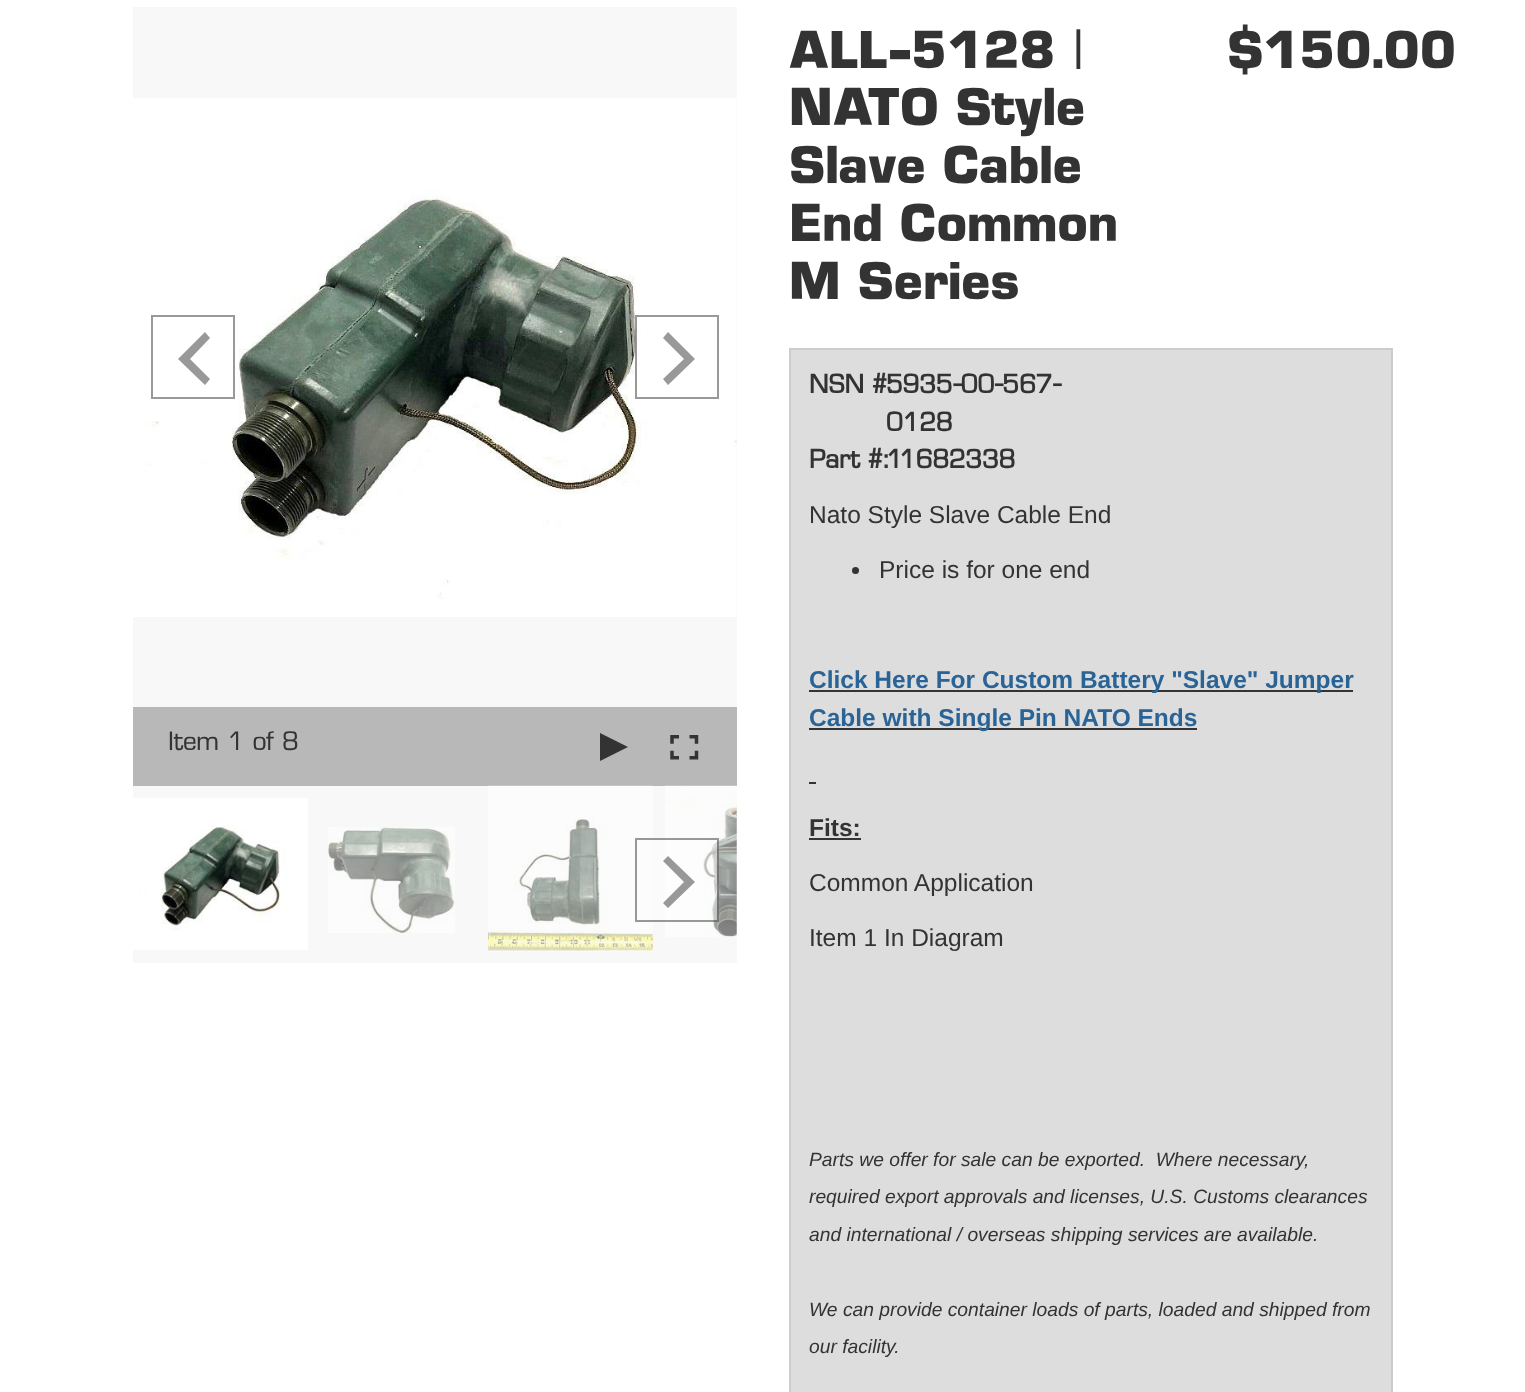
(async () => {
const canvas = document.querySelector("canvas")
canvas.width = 1525
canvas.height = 1392
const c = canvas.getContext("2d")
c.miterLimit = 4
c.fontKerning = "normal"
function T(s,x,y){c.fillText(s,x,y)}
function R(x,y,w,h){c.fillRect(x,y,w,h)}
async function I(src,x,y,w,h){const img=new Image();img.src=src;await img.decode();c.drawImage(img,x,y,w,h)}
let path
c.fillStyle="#fff"
R(0,0,1525,1392)
c.fillStyle="#000"
R(133,707,604,79)
c.fillStyle="#f8f8f8"
R(133,7,604,700)
await I("1.png",133,98,604,519)
c.strokeStyle="#999"
c.lineWidth=2
c.strokeRect(152,316,82,82)
c.fillStyle="#999"
path = new Path2D("M210 379l-20-20l20-21l-5-6l-27 27l27 26z")
c.fill(path)
c.fillStyle="#ffffff66"
R(635,328,5,27)
c.strokeStyle="#00000066"
c.strokeRect(636,316,82,82)
c.fillStyle="#999"
path = new Path2D("M663 338l21 21l-21 20l5 6l27-26l-27-27z")
c.fill(path)
c.fillStyle="#f8f8f8"
R(133,786,604,177)
await I("5.png",488,785,165,167)
await I("6.png",665,785,72,152)
c.fillStyle="#e6e6e6cc"
R(133,707,604,79)
c.font="26.25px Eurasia"
c.fillStyle="#333"
T("Item 1 of 8",168,750)
path = new Path2D("M600 761v-28l28 14z")
c.fill(path)
await I("2.png",670,735,29,25)
c.strokeStyle="#fff"
c.strokeRect(134,799,173,150)
await I("3.png",135,800,171,148)
await I("4.png",328,827,127,106)
c.fillStyle="#ffffff66"
R(653,838,66,84)
c.strokeStyle="#00000066"
c.strokeRect(636,839,82,82)
c.fillStyle="#989898"
path = new Path2D("M663 861l21 21l-21 21l5 5l27-26l-27-26z")
c.fill(path)
c.font="bold 52.5px Eurasia"
c.fillStyle="#333"
T("ALL-5128 |",789,68)
T("NATO Style",789,125)
T("Slave Cable",789,183)
T("End Common",789,241)
T("M Series",789,299)
T("$150.00",1227,68)
c.fillStyle="#ddd"
c.beginPath()
c.rect(790,349,602,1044)
c.fill()
c.strokeStyle="#ccc"
c.stroke()
c.font="bold 26.25px 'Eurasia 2'"
c.fillStyle="#333"
T("NSN #:",809,393)
T("5935-00-567-",886,393)
T("0128",886,431)
T("Part #:",809,468)
T("11682338",886,468)
c.font="24.5px Liberation Sans"
T("Nato Style Slave Cable End",809,523)
c.beginPath()
c.arc(855.5,570.5,3.5,0,7)
c.fill()
T("Price is for one end",879,578)
R(809,690,544,2)
c.font="bold 24.5px Liberation Sans"
c.fillStyle="#2a6496"
T("Click Here For Custom Battery \"Slave\" Jumper",809,688)
c.fillStyle="#333"
R(809,728,388,2)
c.fillStyle="#2a6496"
T("Cable with Single Pin NATO Ends",809,726)
c.fillStyle="#333"
R(809,782,7,2)
T("Fits:",809,836)
R(809,838,52,2)
c.font="24.5px Liberation Sans"
T("Common Application",809,891)
T("Item 1 In Diagram",809,946)
c.font="italic 19.25px Liberation Sans"
T("Parts we offer for sale can be exported.  Where necessary,",809,1166)
T("required export approvals and licenses, U.S. Customs clearances",809,1203)
T("and international / overseas shipping services are available.",809,1241)
T("We can provide container loads of parts, loaded and shipped from",809,1316)
T("our facility.",809,1353)
})()
